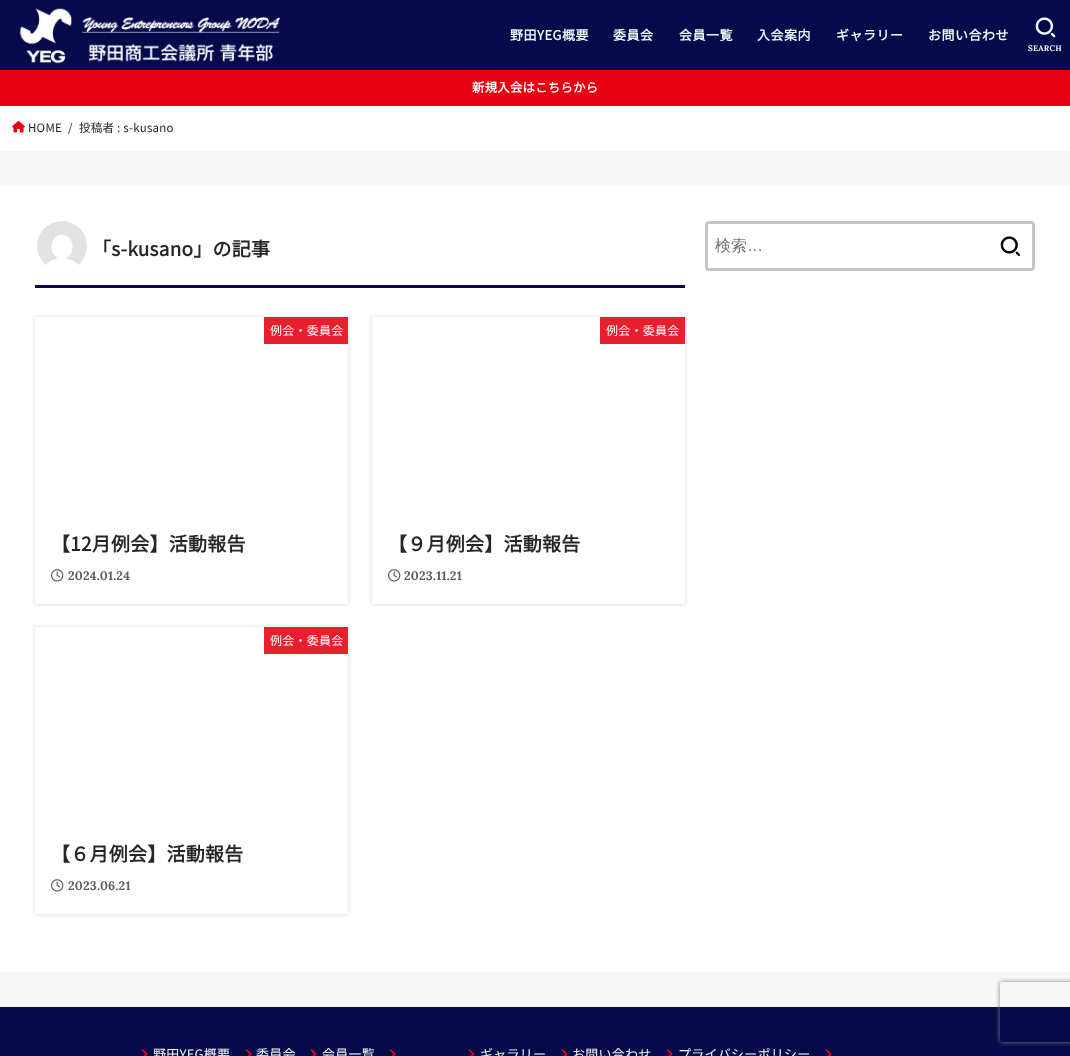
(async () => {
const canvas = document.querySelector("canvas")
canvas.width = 1070
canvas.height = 1056
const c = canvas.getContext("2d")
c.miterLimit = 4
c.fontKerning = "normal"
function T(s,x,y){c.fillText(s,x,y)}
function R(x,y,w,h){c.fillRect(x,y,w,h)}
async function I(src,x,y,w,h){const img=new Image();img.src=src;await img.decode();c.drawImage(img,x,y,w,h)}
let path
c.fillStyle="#f7f7f7"
R(0,0,1070,1056)
c.fillStyle="#070a4a"
R(0,0,1070,70)
await I("1.png",19,8,261,56)
c.letterSpacing="0.5px"
c.font="bold 13px Noto Sans JP"
c.fillStyle="#edf9fc"
T("野田YEG概要",510,40)
T("委員会",613,40)
T("会員一覧",679,40)
T("入会案内",757,40)
T("ギャラリー",836,40)
T("お問い合わせ",928,40)
await I("2.png",1035,17,21,21)
c.letterSpacing="0.25px"
c.font="bold 8px Lora"
T("SEARCH",1028,51)
c.fillStyle="#e60012"
R(0,70,1070,36)
c.font="bold 12.4px Noto Sans JP"
c.fillStyle="#fff"
T("新規入会はこちらから",472,92)
R(0,106,1070,45)
await I("3.png",12,120,13,13)
c.font="100 11.5px Noto Sans JP"
c.fillStyle="#262626"
T("HOME",28,132)
T("/",68,132)
T("投稿者 : s-kusano",79,132)
c.fillStyle="#fff"
R(0,186,1070,786)
c.fillStyle="#070a4a"
R(35,285,650,3)
await I("4.png",37,221,50,44)
c.font="bold 19px Noto Sans JP"
c.fillStyle="#262626"
T("「s-kusano」の記事",92,256)
c.save()
path = new Path2D("M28 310h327v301h-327zm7 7h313v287h-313z")
c.clip(path,"evenodd")
c.fillStyle="#00000026"
c.filter="blur(2px)"
c.beginPath()
c.rect(35,317,313,287)
c.fill()
c.filter="none"
c.restore()
c.fillStyle="#e91f2e"
R(264,317,84,27)
c.font="100 12px Noto Sans JP"
c.fillStyle="#fff"
T("例会・委員会",270,335)
c.font="bold 19px Noto Sans JP"
c.fillStyle="#262626"
T("【12月例会】活動報告",51,551)
await I("5.png",51,569,13,13)
c.font="bold 12.4px Lora"
c.fillStyle="#5c5c5c"
T("2024.01.24",68,580)
c.save()
path = new Path2D("M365 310h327v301h-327zm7 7h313v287h-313z")
c.clip(path,"evenodd")
c.fillStyle="#00000026"
c.filter="blur(2px)"
c.beginPath()
c.rect(372,317,313,287)
c.fill()
c.filter="none"
c.restore()
c.fillStyle="#e91f2e"
R(600,317,85,27)
c.font="100 12px Noto Sans JP"
c.fillStyle="#fff"
T("例会・委員会",606,335)
c.font="bold 19px Noto Sans JP"
c.fillStyle="#262626"
T("【９月例会】活動報告",388,551)
await I("5.png",388,569,13,13)
c.font="bold 12.4px Lora"
c.fillStyle="#5c5c5c"
T("2023.11.21",404,580)
c.save()
path = new Path2D("M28 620h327v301h-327zm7 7h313v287h-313z")
c.clip(path,"evenodd")
c.fillStyle="#00000026"
c.filter="blur(2px)"
c.beginPath()
c.rect(35,627,313,287)
c.fill()
c.filter="none"
c.restore()
c.fillStyle="#e91f2e"
R(264,627,84,27)
c.font="100 12px Noto Sans JP"
c.fillStyle="#fff"
T("例会・委員会",270,645)
c.font="bold 19px Noto Sans JP"
c.fillStyle="#262626"
T("【６月例会】活動報告",51,861)
await I("5.png",51,879,13,13)
c.font="bold 12.4px Lora"
c.fillStyle="#5c5c5c"
T("2023.06.21",68,890)
c.beginPath()
c.roundRect(706.5,222.5,327,47,2.5)
c.strokeStyle="#c6c6c6"
c.lineWidth=3
c.stroke()
c.letterSpacing="0px"
c.font="500 16px WenQuanYi Zen Hei"
c.fillStyle="#757575"
T("検索",715,251)
c.font="16px Liberation Sans"
T("…",747,251)
await I("6.png",1000,236,20,20)
c.fillStyle="#070a4a"
R(0,1007,1070,49)
await I("7.png",141,1049,7,7)
c.letterSpacing="0.25px"
c.font="100 13px Noto Sans JP"
c.fillStyle="#f7f7f7"
T("野田YEG概要",153,1059)
await I("7.png",245,1049,7,7)
T("委員会",256,1059)
await I("7.png",310,1049,7,7)
T("会員一覧",322,1059)
await I("7.png",389,1049,7,7)
await I("7.png",468,1049,7,7)
T("ギャラリー",480,1059)
await I("7.png",561,1049,7,7)
T("お問い合わせ",572,1059)
await I("7.png",666,1049,7,7)
T("プライバシーポリシー",678,1059)
await I("7.png",825,1049,7,7)
c.save()
path = new Path2D("M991 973h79v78h-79zm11 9h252c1 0 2 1 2 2v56c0 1-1 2-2 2h-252c-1 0-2-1-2-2v-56c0-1 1-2 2-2z")
c.clip(path,"evenodd")
c.fillStyle="#808080"
c.filter="blur(2.5px)"
c.beginPath()
c.roundRect(1000,982,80,60,2)
c.fill()
c.filter="none"
c.restore()
})()
